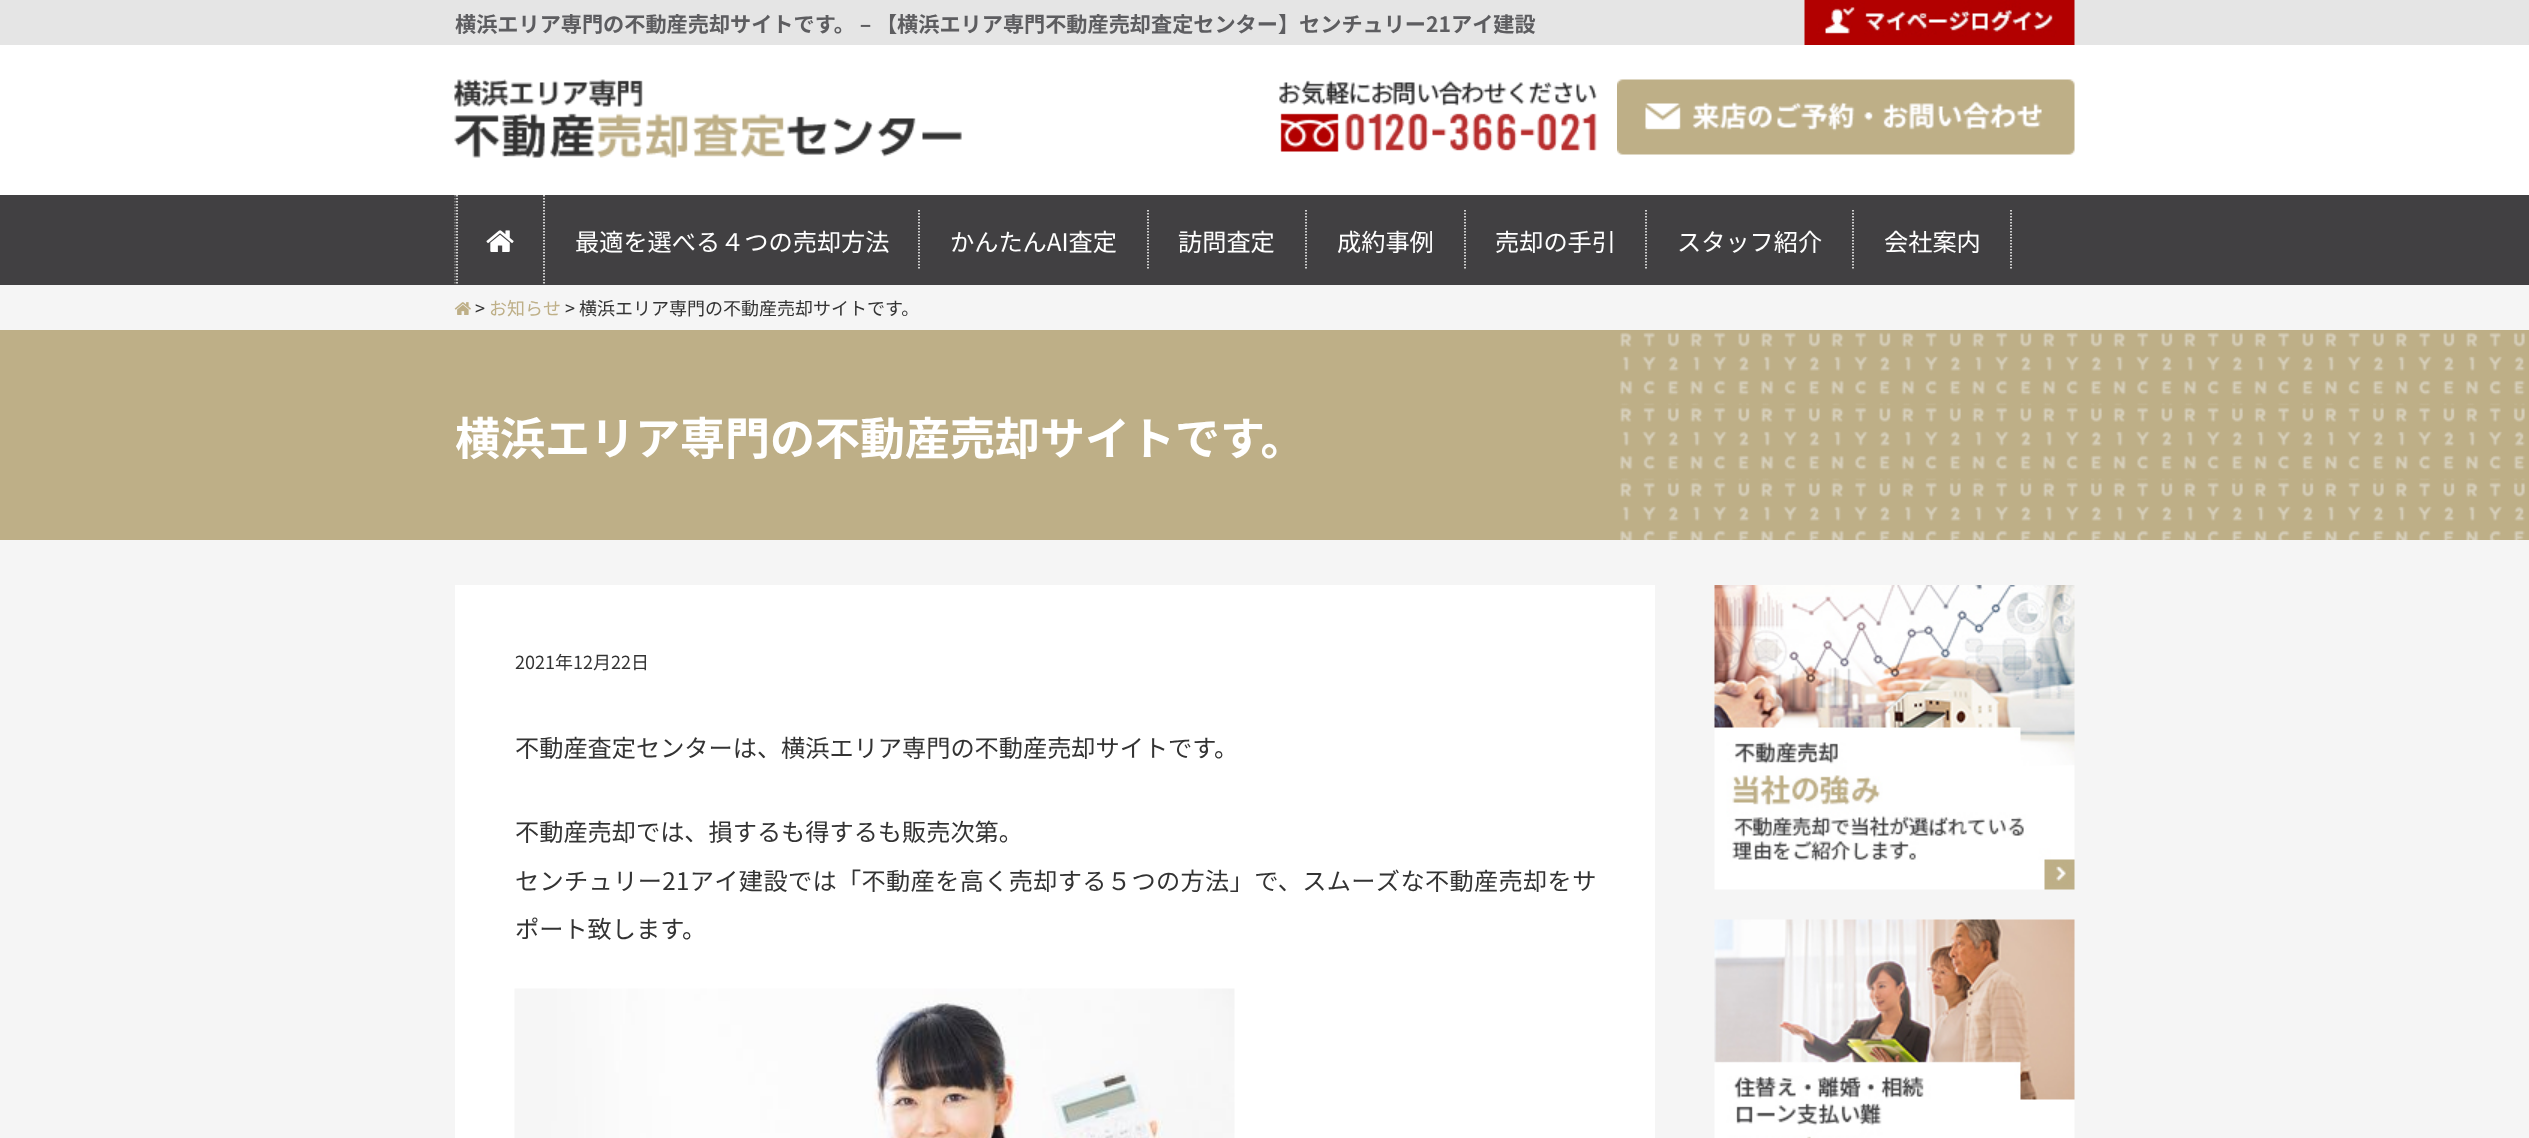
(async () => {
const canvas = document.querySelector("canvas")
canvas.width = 2529
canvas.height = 1138
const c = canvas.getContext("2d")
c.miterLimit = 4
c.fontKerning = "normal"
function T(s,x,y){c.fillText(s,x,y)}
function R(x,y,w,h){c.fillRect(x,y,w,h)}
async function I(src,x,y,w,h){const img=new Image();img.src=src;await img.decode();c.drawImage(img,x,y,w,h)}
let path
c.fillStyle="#f5f5f5"
R(0,0,2529,1138)
c.fillStyle="#fff"
R(0,45,2529,150)
c.fillStyle="#e5e5e5"
R(0,0,2529,45)
c.font="bold 21.17px Noto Sans JP"
c.fillStyle="#5d5d60"
T("横浜エリア専門の不動産売却サイトです。 – 【横浜エリア専門不動産売却査定センター】センチュリー21アイ建設",455,32)
await I("1.png",1804,0,271,45)
await I("2.png",454,79,508,79)
await I("3.png",1279,80,318,72)
await I("4.png",1617,79,458,76)
c.fillStyle="#414042"
R(0,195,2529,90)
path = new Path2D("M455 195v90")
c.strokeStyle="#828282"
c.lineWidth=1.5
c.setLineDash([1.5,1.5])
c.stroke(path)
path = new Path2D("M544 195v90")
c.strokeStyle="#fff"
c.stroke(path)
path = new Path2D("M457 195v90")
c.stroke(path)
await I("5.png",486,230,28,22)
path = new Path2D("M919 210v60")
c.stroke(path)
c.font="24.2px Noto Sans JP"
c.fillStyle="#fff"
T("最適を選べる４つの売却方法",575,251)
path = new Path2D("M1148 210v60")
c.stroke(path)
T("かんたんAI査定",950,251)
path = new Path2D("M1306 210v60")
c.stroke(path)
T("訪問査定",1178,251)
path = new Path2D("M1465 210v60")
c.stroke(path)
T("成約事例",1337,251)
path = new Path2D("M1646 210v60")
c.stroke(path)
T("売却の手引",1495,251)
path = new Path2D("M1853 210v60")
c.stroke(path)
T("スタッフ紹介",1677,251)
path = new Path2D("M2011 210v60")
c.stroke(path)
T("会社案内",1884,251)
await I("6.png",454,302,17,13)
c.font="18px Noto Sans JP"
c.fillStyle="#333"
T(">",475,315)
c.fillStyle="#beaf87"
T("お知らせ",489,315)
c.fillStyle="#333"
T("> 横浜エリア専門の不動産売却サイトです。",565,315)
c.fillStyle="#beaf87"
R(0,330,2529,210)
c.font="bold 45px Noto Sans JP"
c.fillStyle="#fff"
T("横浜エリア専門の不動産売却サイトです。",455,455)
await I("7.png",1620,332,905,208)
R(455,585,1200,553)
c.font="18px Noto Sans JP"
c.fillStyle="#333"
T("2021年12月22日",515,669)
c.font="24.2px Noto Sans JP"
T("不動産査定センターは、横浜エリア専門の不動産売却サイトです。",515,757)
T("不動産売却では、損するも得するも販売次第。",515,841)
c.letterSpacing="0.35px"
T("センチュリー21アイ建設では「不動産を高く売却する５つの方法」で、スムーズな不動産売却をサ",515,890)
c.letterSpacing="0px"
T("ポート致します。",515,938)
await I("8.png",514,988,721,150)
await I("9.png",1714,585,361,305)
await I("10.png",1714,919,361,219)
})()
